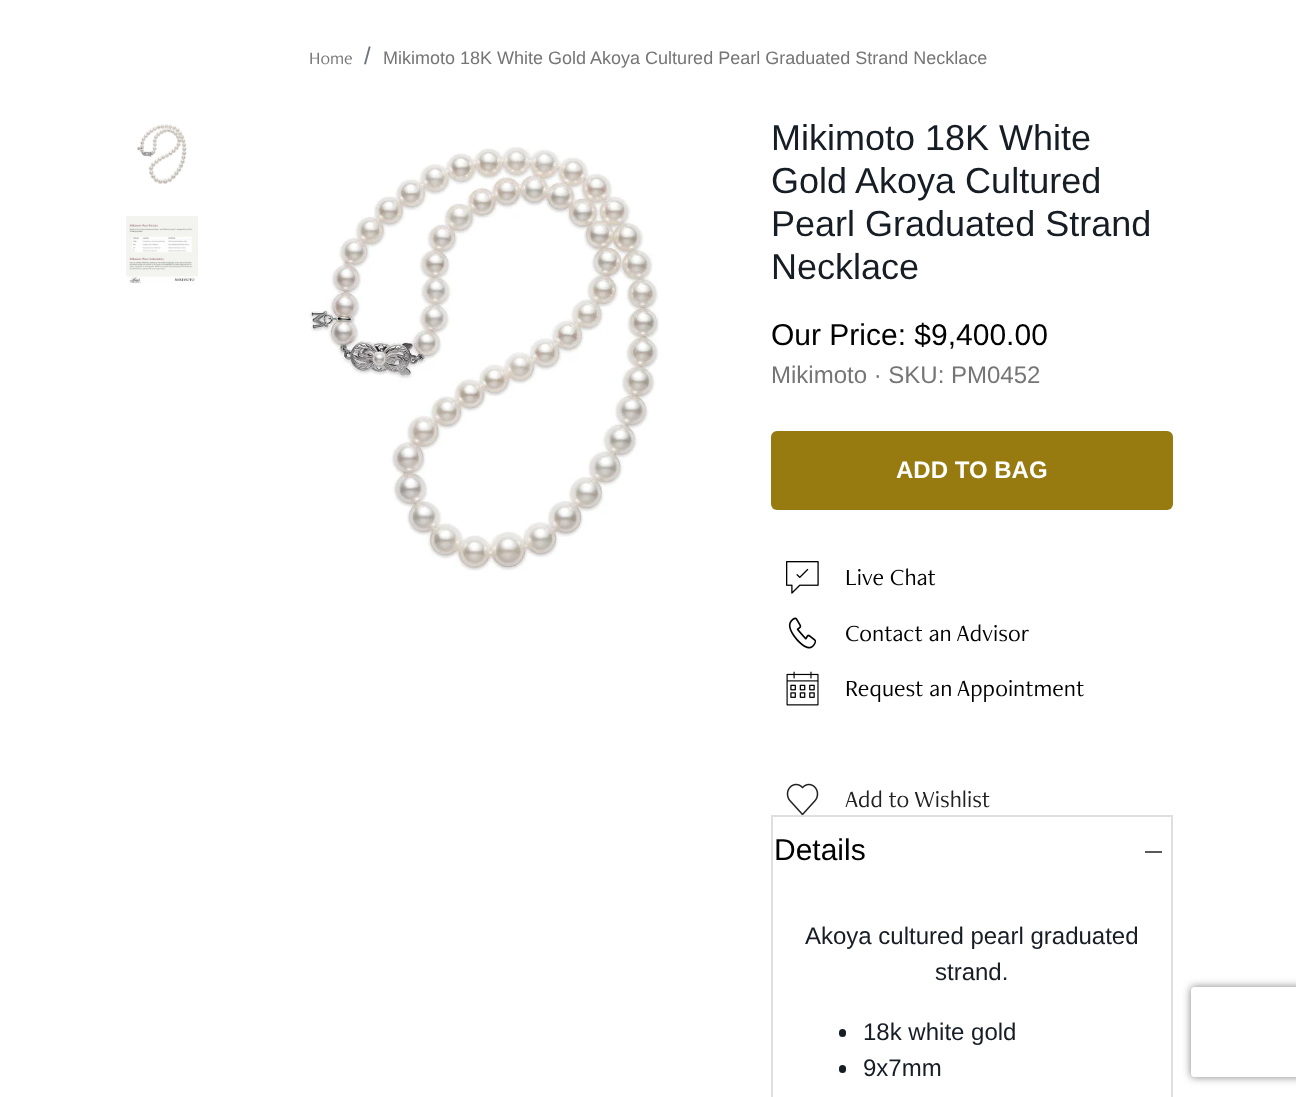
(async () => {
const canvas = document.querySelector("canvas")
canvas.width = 1296
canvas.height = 1097
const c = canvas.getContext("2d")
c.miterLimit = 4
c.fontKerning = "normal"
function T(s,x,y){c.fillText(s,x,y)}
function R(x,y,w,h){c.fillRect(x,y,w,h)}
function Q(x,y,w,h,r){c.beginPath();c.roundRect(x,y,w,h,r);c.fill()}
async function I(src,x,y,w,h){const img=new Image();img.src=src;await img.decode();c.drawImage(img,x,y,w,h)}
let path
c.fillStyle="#fff"
R(0,0,1296,1097)
c.font="18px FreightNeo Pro"
c.fillStyle="#757575"
T("Home",309,64)
c.font="24px Liberation Sans"
c.fillStyle="#6c757d"
T("/",364,64)
c.font="18px Liberation Sans"
c.fillStyle="#757575"
T("Mikimoto 18K White Gold Akoya Cultured Pearl Graduated Strand Necklace",383,64)
await I("1.png",137,124,50,60)
await I("2.png",126,216,72,68)
await I("3.png",309,146,350,425)
c.font="36px Liberation Sans"
c.fillStyle="#161d25"
T("Mikimoto 18K White",771,150)
T("Gold Akoya Cultured",771,193)
T("Pearl Graduated Strand",771,236)
T("Necklace",771,279)
c.font="30px Liberation Sans"
c.fillStyle="#000"
T("Our Price: $9,400.00",771,345)
c.font="24px Liberation Sans"
c.fillStyle="#757575"
T("Mikimoto · SKU: PM0452",771,383)
c.fillStyle="#977b11"
Q(771,431,402,79,6)
c.font="bold 24px Liberation Sans"
c.fillStyle="#fff"
T("ADD TO BAG",896,478)
await I("4.png",786,561,33,33)
c.font="24px FreightNeo Pro"
c.fillStyle="#000"
T("Live Chat",845,585)
await I("5.png",788,617,29,32)
T("Contact an Advisor",845,641)
await I("6.png",786,671,33,35)
T("Request an Appointment",845,696)
await I("7.png",786,783,33,32)
c.fillStyle="#212121"
T("Add to Wishlist",845,807)
c.strokeStyle="#dfdfdf"
c.lineWidth=2
c.strokeRect(772,816,400,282)
c.font="30px Liberation Sans"
c.fillStyle="#000"
T("Details",774,860)
c.fillStyle="#595959"
R(1145,851,17,2)
c.font="24px Liberation Sans"
c.fillStyle="#161d25"
T("Akoya cultured pearl graduated",805,944)
T("strand.",935,980)
Q(839,1029,7,8,3.5)
T("18k white gold",863,1040)
Q(839,1065,7,8,3.5)
T("9x7mm",863,1076)
c.save()
path = new Path2D("M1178 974h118v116h-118zm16 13h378c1.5 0 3 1.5 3 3v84c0 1.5-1.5 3-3 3h-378c-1.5 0-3-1.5-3-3v-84c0-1.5 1.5-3 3-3z")
c.clip(path,"evenodd")
c.fillStyle="#808080"
c.filter="blur(4px)"
c.beginPath()
c.roundRect(1191,987,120,90,3)
c.fill()
c.filter="none"
c.restore()
})()
